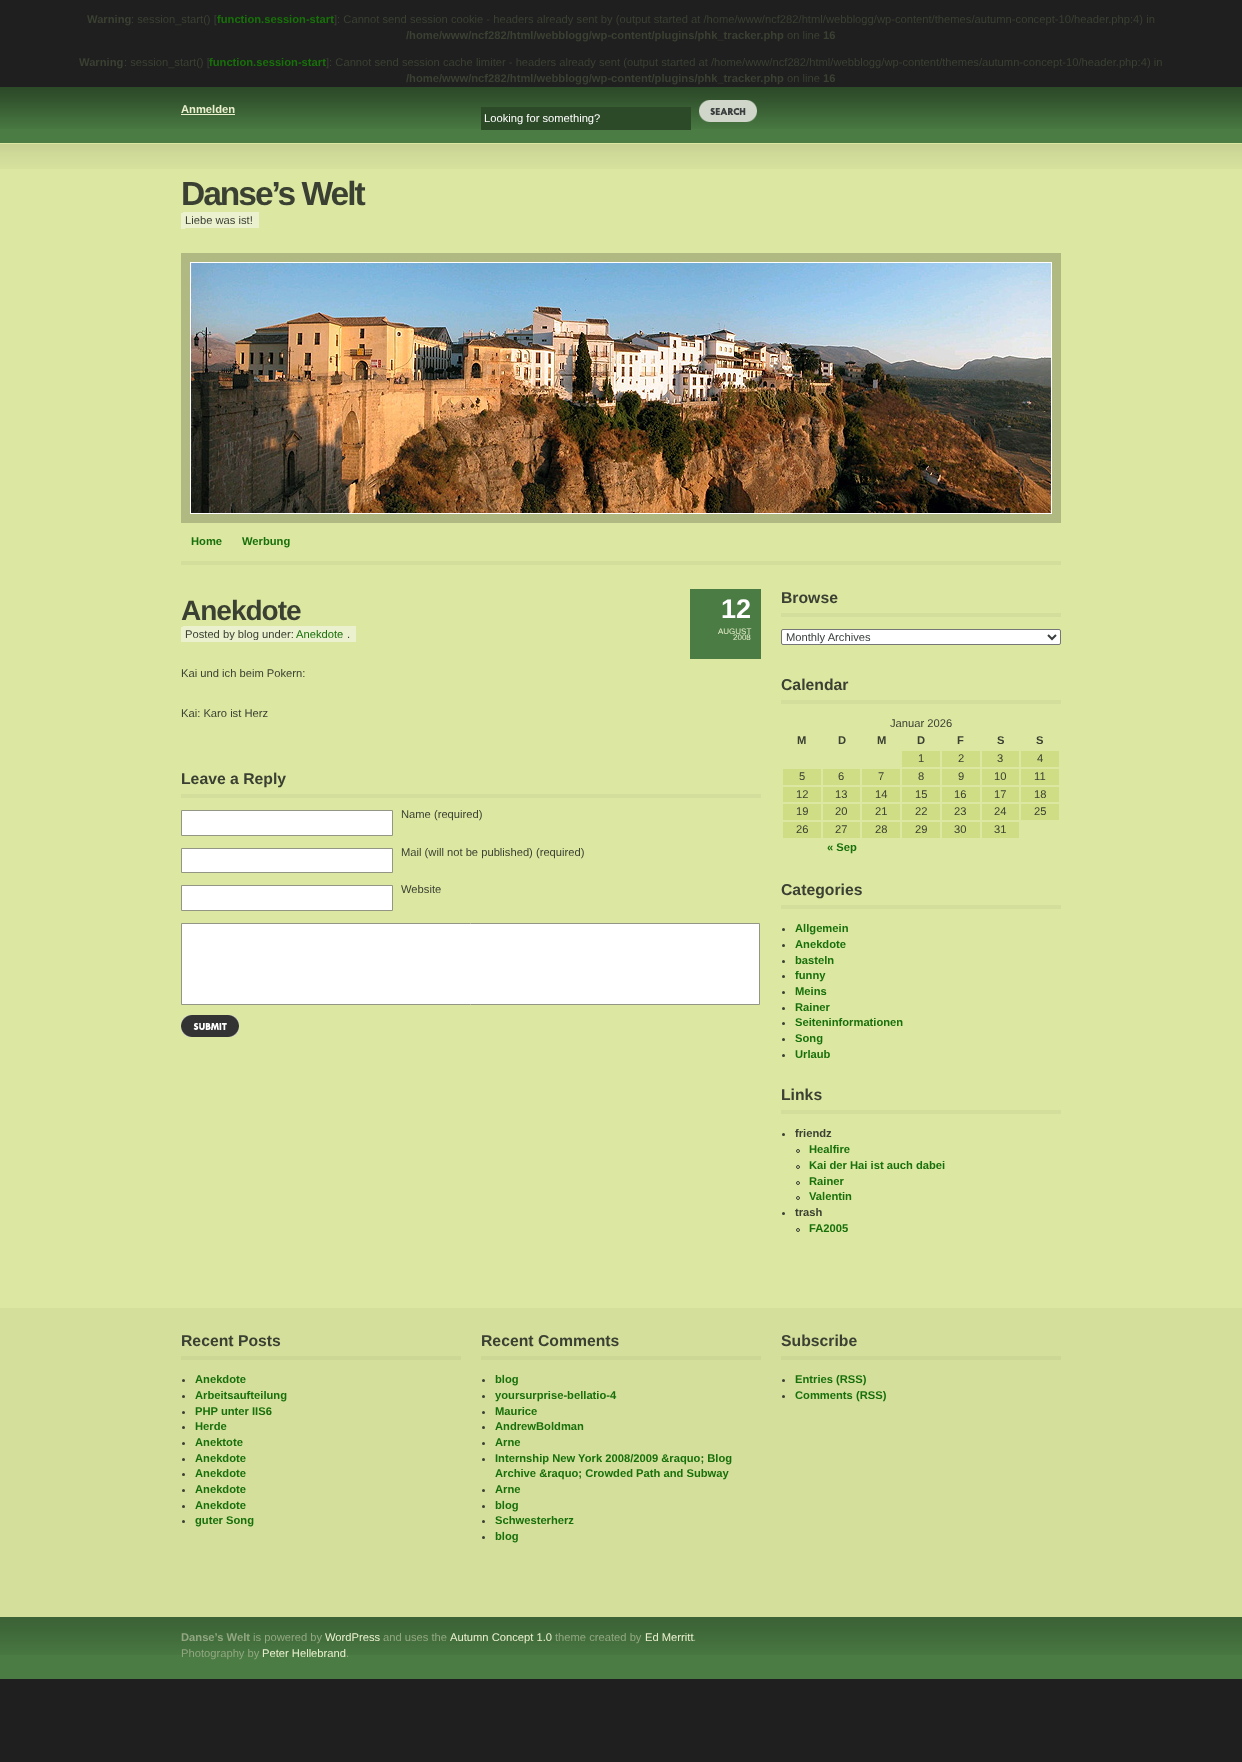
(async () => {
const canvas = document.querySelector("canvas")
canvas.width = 1242
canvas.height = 1762
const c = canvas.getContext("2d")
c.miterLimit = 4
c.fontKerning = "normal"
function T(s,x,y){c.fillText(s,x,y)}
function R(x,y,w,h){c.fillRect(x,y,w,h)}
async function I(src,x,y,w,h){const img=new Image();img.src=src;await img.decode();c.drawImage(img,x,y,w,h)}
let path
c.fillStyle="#1f1f1f"
R(0,0,1242,1762)
c.font="bold 11.2px Liberation Sans"
c.fillStyle="#3a4032"
T("Warning",87,23)
c.font="11.2px Liberation Sans"
T(": session_start() [",131,23)
c.font="bold 11.2px Liberation Sans"
c.fillStyle="#18700a"
T("function.session-start",217,23)
c.font="11.2px Liberation Sans"
c.fillStyle="#3a4032"
T("]: Cannot send session cookie - headers already sent by (output started at /home/www/ncf282/html/webblogg/wp-content/themes/autumn-concept-10/header.php:4) in",334,23)
c.font="bold 11.2px Liberation Sans"
T("/home/www/ncf282/html/webblogg/wp-content/plugins/phk_tracker.php",406,39)
c.font="11.2px Liberation Sans"
T("on line",787,39)
c.font="bold 11.2px Liberation Sans"
T("16",823,39)
T("Warning",79,66)
c.font="11.2px Liberation Sans"
T(": session_start() [",124,66)
c.font="bold 11.2px Liberation Sans"
c.fillStyle="#18700a"
T("function.session-start",209,66)
c.font="11.2px Liberation Sans"
c.fillStyle="#3a4032"
T("]: Cannot send session cache limiter - headers already sent (output started at /home/www/ncf282/html/webblogg/wp-content/themes/autumn-concept-10/header.php:4) in",326,66)
c.font="bold 11.2px Liberation Sans"
T("/home/www/ncf282/html/webblogg/wp-content/plugins/phk_tracker.php",406,82)
c.font="11.2px Liberation Sans"
T("on line",787,82)
c.font="bold 11.2px Liberation Sans"
T("16",823,82)
c.fillStyle="#dce7a2"
R(0,143,1242,1165)
c.fillStyle="#4b7c44"
R(0,87,1242,56)
await I("1.png",0,87,1242,42)
c.fillStyle="#ebf0cf"
T("Anmelden",181,113)
R(181,114,54,1)
c.fillStyle="#2d4a28"
R(481,107,210,23)
c.font="11.2px Liberation Sans"
c.fillStyle="#fff"
T("Looking for something?",484,122)
await I("2.png",699,100,58,22)
await I("3.png",0,144,1242,25)
c.letterSpacing="-2px"
c.font="bold 33.5px Liberation Sans"
c.fillStyle="#3a4032"
T("Danse’s Welt",181,205)
c.fillStyle="#ebf0cf"
R(181,213,4,16)
R(185,214,72,12)
c.letterSpacing="0px"
c.font="11.2px Liberation Sans"
c.fillStyle="#3a4032"
T("Liebe was ist!",185,224)
c.strokeStyle="#ebf0cf"
c.lineWidth=2
c.strokeRect(184,213,74,14)
c.fillStyle="#b0b981"
R(181,253,880,270)
c.fillStyle="#fff"
R(190,262,862,252)
await I("4.png",191,263,860,250)
c.fillStyle="#d3de9c"
R(181,561,880,4)
c.font="bold 11.2px Liberation Sans"
c.fillStyle="#18700a"
T("Home",191,545)
T("Werbung",242,545)
c.letterSpacing="-1px"
c.font="bold 28px Liberation Sans"
c.fillStyle="#3a4032"
T("Anekdote",181,620)
c.fillStyle="#4b7c44"
R(690,589,71,70)
c.letterSpacing="0px"
c.font="bold 27px Liberation Sans"
c.fillStyle="#fff"
T("12",721,618)
c.font="8px Liberation Sans"
c.fillStyle="#ebf0cf"
T("AUGUST",718,634)
T("2008",733,640)
R(181,627,2,15)
R(185,628,169,12)
c.font="11.2px Liberation Sans"
c.fillStyle="#3a4032"
T("Posted by blog under:",185,638)
c.fillStyle="#18700a"
T("Anekdote",296,638)
c.strokeRect(184,627,171,14)
c.fillStyle="#3a4032"
T(".",347,638)
T("Kai und ich beim Pokern:",181,677)
T("Kai: Karo ist Herz",181,717)
c.fillStyle="#d3de9c"
R(181,794,580,4)
c.font="bold 15.75px Liberation Sans"
c.fillStyle="#3a4032"
T("Leave a Reply",181,784)
c.fillStyle="#fff"
c.beginPath()
c.rect(181.5,810.5,211,25)
c.fill()
c.strokeStyle="#959586"
c.lineWidth=1
c.stroke()
c.font="11.2px Liberation Sans"
c.fillStyle="#3a4032"
T("Name (required)",401,818)
c.fillStyle="#fff"
c.beginPath()
c.rect(181.5,848.5,211,24)
c.fill()
c.stroke()
c.fillStyle="#3a4032"
T("Mail (will not be published) (required)",401,856)
c.fillStyle="#fff"
c.beginPath()
c.rect(181.5,885.5,211,25)
c.fill()
c.stroke()
c.fillStyle="#3a4032"
T("Website",401,893)
c.fillStyle="#fff"
c.beginPath()
c.rect(181.5,923.5,578,81)
c.fill()
c.stroke()
await I("5.png",181,1015,58,22)
c.fillStyle="#d3de9c"
R(781,613,280,4)
c.font="bold 15.75px Liberation Sans"
c.fillStyle="#3a4032"
T("Browse",781,603)
c.fillStyle="#fff"
c.beginPath()
c.roundRect(781.5,629.5,279,15,1.5)
c.fill()
c.strokeStyle="#767676"
c.stroke()
path = new Path2D("M1048 635l4 4l4-4")
c.strokeStyle="#3a3e3e"
c.lineWidth=2
c.stroke(path)
c.font="11.2px Liberation Sans"
c.fillStyle="#3a3e3e"
T("Monthly Archives",786,641)
c.fillStyle="#d3de9c"
R(781,700,280,4)
c.font="bold 15.75px Liberation Sans"
c.fillStyle="#3a4032"
T("Calendar",781,690)
c.font="11.2px Liberation Sans"
T("Januar 2026",890,727)
c.font="bold 11.2px Liberation Sans"
T("M",797,744)
T("D",838,744)
T("M",877,744)
T("D",917,744)
T("F",957,744)
T("S",997,744)
T("S",1036,744)
c.fillStyle="#cfdd85"
R(902,751,38,16)
c.font="11.2px Liberation Sans"
c.fillStyle="#3a4032"
T("1",918,762)
c.fillStyle="#cfdd85"
R(942,751,38,16)
c.fillStyle="#3a4032"
T("2",958,762)
c.fillStyle="#cfdd85"
R(982,751,37,16)
c.fillStyle="#3a4032"
T("3",997,762)
c.fillStyle="#cfdd85"
R(1021,751,38,16)
c.fillStyle="#3a4032"
T("4",1037,762)
c.fillStyle="#cfdd85"
R(783,769,38,16)
c.fillStyle="#3a4032"
T("5",799,780)
c.fillStyle="#cfdd85"
R(823,769,37,16)
c.fillStyle="#3a4032"
T("6",838,780)
c.fillStyle="#cfdd85"
R(862,769,38,16)
c.fillStyle="#3a4032"
T("7",878,780)
c.fillStyle="#cfdd85"
R(902,769,38,16)
c.fillStyle="#3a4032"
T("8",918,780)
c.fillStyle="#cfdd85"
R(942,769,38,16)
c.fillStyle="#3a4032"
T("9",958,780)
c.fillStyle="#cfdd85"
R(982,769,37,16)
c.fillStyle="#3a4032"
T("10",994,780)
c.fillStyle="#cfdd85"
R(1021,769,38,16)
c.fillStyle="#3a4032"
T("11",1034,780)
c.fillStyle="#cfdd85"
R(783,787,38,15)
c.fillStyle="#3a4032"
T("12",796,798)
c.fillStyle="#cfdd85"
R(823,787,37,15)
c.fillStyle="#3a4032"
T("13",835,798)
c.fillStyle="#cfdd85"
R(862,787,38,15)
c.fillStyle="#3a4032"
T("14",875,798)
c.fillStyle="#cfdd85"
R(902,787,38,15)
c.fillStyle="#3a4032"
T("15",915,798)
c.fillStyle="#cfdd85"
R(942,787,38,15)
c.fillStyle="#3a4032"
T("16",954,798)
c.fillStyle="#cfdd85"
R(982,787,37,15)
c.fillStyle="#3a4032"
T("17",994,798)
c.fillStyle="#cfdd85"
R(1021,787,38,15)
c.fillStyle="#3a4032"
T("18",1034,798)
c.fillStyle="#cfdd85"
R(783,804,38,16)
c.fillStyle="#3a4032"
T("19",796,815)
c.fillStyle="#cfdd85"
R(823,804,37,16)
c.fillStyle="#3a4032"
T("20",835,815)
c.fillStyle="#cfdd85"
R(862,804,38,16)
c.fillStyle="#3a4032"
T("21",875,815)
c.fillStyle="#cfdd85"
R(902,804,38,16)
c.fillStyle="#3a4032"
T("22",915,815)
c.fillStyle="#cfdd85"
R(942,804,38,16)
c.fillStyle="#3a4032"
T("23",954,815)
c.fillStyle="#cfdd85"
R(982,804,37,16)
c.fillStyle="#3a4032"
T("24",994,815)
c.fillStyle="#cfdd85"
R(1021,804,38,16)
c.fillStyle="#3a4032"
T("25",1034,815)
c.fillStyle="#cfdd85"
R(783,822,38,16)
c.fillStyle="#3a4032"
T("26",796,833)
c.fillStyle="#cfdd85"
R(823,822,37,16)
c.fillStyle="#3a4032"
T("27",835,833)
c.fillStyle="#cfdd85"
R(862,822,38,16)
c.fillStyle="#3a4032"
T("28",875,833)
c.fillStyle="#cfdd85"
R(902,822,38,16)
c.fillStyle="#3a4032"
T("29",915,833)
c.fillStyle="#cfdd85"
R(942,822,38,16)
c.fillStyle="#3a4032"
T("30",954,833)
c.fillStyle="#cfdd85"
R(982,822,37,16)
c.fillStyle="#3a4032"
T("31",994,833)
c.font="bold 11.2px Liberation Sans"
c.fillStyle="#18700a"
T("« Sep",827,851)
c.fillStyle="#d3de9c"
R(781,905,280,4)
c.font="bold 15.75px Liberation Sans"
c.fillStyle="#3a4032"
T("Categories",781,895)
c.beginPath()
c.arc(783.5,929.5,1.5,0,7)
c.fill()
c.font="bold 11.2px Liberation Sans"
c.fillStyle="#18700a"
T("Allgemein",795,932)
c.fillStyle="#3a4032"
c.beginPath()
c.arc(783.5,945.5,1.5,0,7)
c.fill()
c.fillStyle="#18700a"
T("Anekdote",795,948)
c.fillStyle="#3a4032"
c.beginPath()
c.arc(783.5,961.5,1.5,0,7)
c.fill()
c.fillStyle="#18700a"
T("basteln",795,964)
c.fillStyle="#3a4032"
c.beginPath()
c.arc(783.5,976.5,1.5,0,7)
c.fill()
c.fillStyle="#18700a"
T("funny",795,979)
c.fillStyle="#3a4032"
c.beginPath()
c.arc(783.5,992.5,1.5,0,7)
c.fill()
c.fillStyle="#18700a"
T("Meins",795,995)
c.fillStyle="#3a4032"
c.beginPath()
c.arc(783.5,1008.5,1.5,0,7)
c.fill()
c.fillStyle="#18700a"
T("Rainer",795,1011)
c.fillStyle="#3a4032"
c.beginPath()
c.arc(783.5,1023.5,1.5,0,7)
c.fill()
c.fillStyle="#18700a"
T("Seiteninformationen",795,1026)
c.fillStyle="#3a4032"
c.beginPath()
c.arc(783.5,1039.5,1.5,0,7)
c.fill()
c.fillStyle="#18700a"
T("Song",795,1042)
c.fillStyle="#3a4032"
c.beginPath()
c.arc(783.5,1055.5,1.5,0,7)
c.fill()
c.fillStyle="#18700a"
T("Urlaub",795,1058)
c.fillStyle="#d3de9c"
R(781,1110,280,4)
c.font="bold 15.75px Liberation Sans"
c.fillStyle="#3a4032"
T("Links",781,1100)
c.beginPath()
c.arc(783.5,1134.5,1.5,0,7)
c.fill()
c.font="bold 11.2px Liberation Sans"
T("friendz",795,1137)
c.beginPath()
c.arc(798,1151,1.5,0,7)
c.strokeStyle="#3a4032"
c.lineWidth=1
c.stroke()
c.fillStyle="#18700a"
T("Healfire",809,1153)
c.beginPath()
c.arc(798,1167,1.5,0,7)
c.stroke()
T("Kai der Hai ist auch dabei",809,1169)
c.beginPath()
c.arc(798,1183,1.5,0,7)
c.stroke()
T("Rainer",809,1185)
c.beginPath()
c.arc(798,1198,1.5,0,7)
c.stroke()
T("Valentin",809,1200)
c.fillStyle="#3a4032"
c.beginPath()
c.arc(783.5,1213.5,1.5,0,7)
c.fill()
T("trash",795,1216)
c.beginPath()
c.arc(798,1230,1.5,0,7)
c.stroke()
c.fillStyle="#18700a"
T("FA2005",809,1232)
c.fillStyle="#d4df9b"
R(0,1308,1242,309)
c.fillStyle="#ccd695"
R(181,1356,280,4)
c.font="bold 15.75px Liberation Sans"
c.fillStyle="#3a4032"
T("Recent Posts",181,1346)
c.beginPath()
c.arc(183.5,1380.5,1.5,0,7)
c.fill()
c.font="bold 11.2px Liberation Sans"
c.fillStyle="#18700a"
T("Anekdote",195,1383)
c.fillStyle="#3a4032"
c.beginPath()
c.arc(183.5,1396.5,1.5,0,7)
c.fill()
c.fillStyle="#18700a"
T("Arbeitsaufteilung",195,1399)
c.fillStyle="#3a4032"
c.beginPath()
c.arc(183.5,1412.5,1.5,0,7)
c.fill()
c.fillStyle="#18700a"
T("PHP unter IIS6",195,1415)
c.fillStyle="#3a4032"
c.beginPath()
c.arc(183.5,1427.5,1.5,0,7)
c.fill()
c.fillStyle="#18700a"
T("Herde",195,1430)
c.fillStyle="#3a4032"
c.beginPath()
c.arc(183.5,1443.5,1.5,0,7)
c.fill()
c.fillStyle="#18700a"
T("Anektote",195,1446)
c.fillStyle="#3a4032"
c.beginPath()
c.arc(183.5,1459.5,1.5,0,7)
c.fill()
c.fillStyle="#18700a"
T("Anekdote",195,1462)
c.fillStyle="#3a4032"
c.beginPath()
c.arc(183.5,1474.5,1.5,0,7)
c.fill()
c.fillStyle="#18700a"
T("Anekdote",195,1477)
c.fillStyle="#3a4032"
c.beginPath()
c.arc(183.5,1490.5,1.5,0,7)
c.fill()
c.fillStyle="#18700a"
T("Anekdote",195,1493)
c.fillStyle="#3a4032"
c.beginPath()
c.arc(183.5,1506.5,1.5,0,7)
c.fill()
c.fillStyle="#18700a"
T("Anekdote",195,1509)
c.fillStyle="#3a4032"
c.beginPath()
c.arc(183.5,1521.5,1.5,0,7)
c.fill()
c.fillStyle="#18700a"
T("guter Song",195,1524)
c.fillStyle="#ccd695"
R(481,1356,280,4)
c.font="bold 15.75px Liberation Sans"
c.fillStyle="#3a4032"
T("Recent Comments",481,1346)
c.beginPath()
c.arc(483.5,1380.5,1.5,0,7)
c.fill()
c.font="bold 11.2px Liberation Sans"
c.fillStyle="#18700a"
T("blog",495,1383)
c.fillStyle="#3a4032"
c.beginPath()
c.arc(483.5,1396.5,1.5,0,7)
c.fill()
c.fillStyle="#18700a"
T("yoursurprise-bellatio-4",495,1399)
c.fillStyle="#3a4032"
c.beginPath()
c.arc(483.5,1412.5,1.5,0,7)
c.fill()
c.fillStyle="#18700a"
T("Maurice",495,1415)
c.fillStyle="#3a4032"
c.beginPath()
c.arc(483.5,1427.5,1.5,0,7)
c.fill()
c.fillStyle="#18700a"
T("AndrewBoldman",495,1430)
c.fillStyle="#3a4032"
c.beginPath()
c.arc(483.5,1443.5,1.5,0,7)
c.fill()
c.fillStyle="#18700a"
T("Arne",495,1446)
c.fillStyle="#3a4032"
c.beginPath()
c.arc(483.5,1459.5,1.5,0,7)
c.fill()
c.fillStyle="#18700a"
T("Internship New York 2008/2009 &raquo; Blog",495,1462)
T("Archive &raquo; Crowded Path and Subway",495,1477)
c.fillStyle="#3a4032"
c.beginPath()
c.arc(483.5,1490.5,1.5,0,7)
c.fill()
c.fillStyle="#18700a"
T("Arne",495,1493)
c.fillStyle="#3a4032"
c.beginPath()
c.arc(483.5,1506.5,1.5,0,7)
c.fill()
c.fillStyle="#18700a"
T("blog",495,1509)
c.fillStyle="#3a4032"
c.beginPath()
c.arc(483.5,1521.5,1.5,0,7)
c.fill()
c.fillStyle="#18700a"
T("Schwesterherz",495,1524)
c.fillStyle="#3a4032"
c.beginPath()
c.arc(483.5,1537.5,1.5,0,7)
c.fill()
c.fillStyle="#18700a"
T("blog",495,1540)
c.fillStyle="#ccd695"
R(781,1356,280,4)
c.font="bold 15.75px Liberation Sans"
c.fillStyle="#3a4032"
T("Subscribe",781,1346)
c.beginPath()
c.arc(783.5,1380.5,1.5,0,7)
c.fill()
c.font="bold 11.2px Liberation Sans"
c.fillStyle="#18700a"
T("Entries (RSS)",795,1383)
c.fillStyle="#3a4032"
c.beginPath()
c.arc(783.5,1396.5,1.5,0,7)
c.fill()
c.fillStyle="#18700a"
T("Comments (RSS)",795,1399)
c.fillStyle="#4b7c44"
R(0,1617,1242,62)
await I("6.png",0,1617,1242,38)
c.fillStyle="#92a781"
T("Danse’s Welt",181,1641)
c.font="11.2px Liberation Sans"
T("is powered by",253,1641)
c.fillStyle="#ebf0cf"
T("WordPress",325,1641)
c.fillStyle="#92a781"
T("and uses the",383,1641)
c.fillStyle="#ebf0cf"
T("Autumn Concept 1.0",450,1641)
c.fillStyle="#92a781"
T("theme created by",555,1641)
c.fillStyle="#ebf0cf"
T("Ed Merritt",645,1641)
c.fillStyle="#92a781"
T(".",693,1641)
T("Photography by",181,1657)
c.fillStyle="#ebf0cf"
T("Peter Hellebrand",262,1657)
c.fillStyle="#92a781"
T(".",346,1657)
})()
